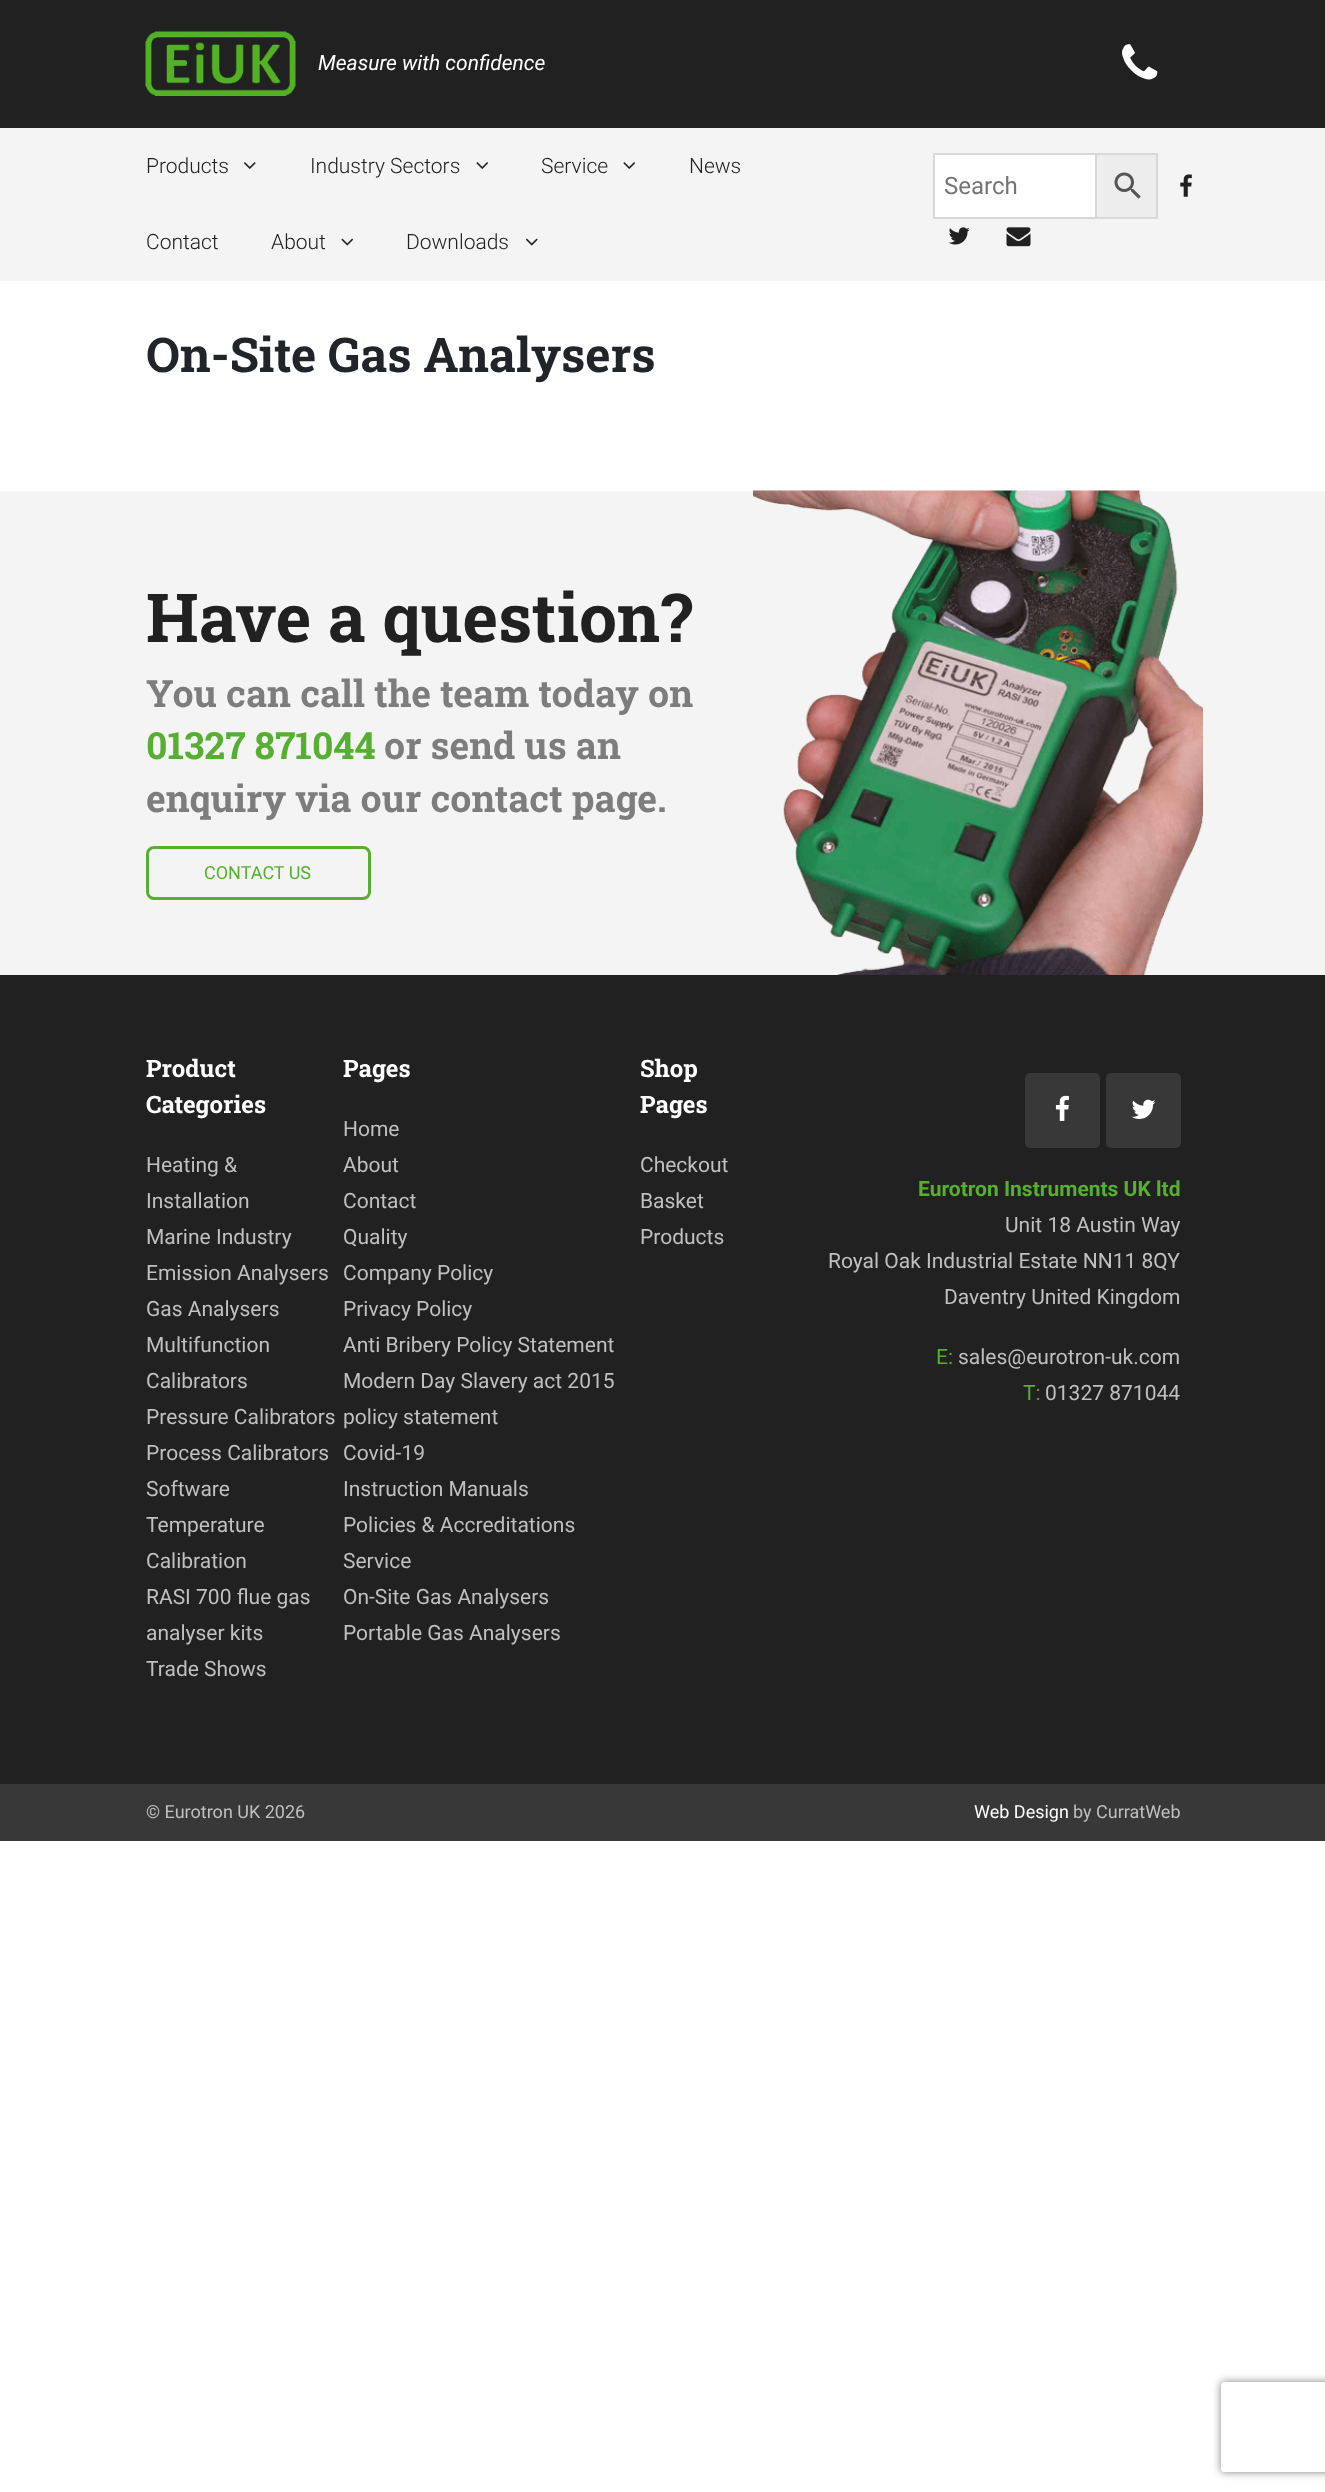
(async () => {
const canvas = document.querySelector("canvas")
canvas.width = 1325
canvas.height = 2492
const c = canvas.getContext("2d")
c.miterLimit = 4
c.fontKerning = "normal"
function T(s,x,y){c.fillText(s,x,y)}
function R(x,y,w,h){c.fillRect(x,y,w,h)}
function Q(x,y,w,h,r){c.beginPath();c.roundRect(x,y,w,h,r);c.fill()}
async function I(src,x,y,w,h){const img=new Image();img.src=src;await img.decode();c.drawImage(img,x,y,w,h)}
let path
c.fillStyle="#fff"
R(0,0,1325,2492)
c.fillStyle="#212121"
R(0,0,1325,128)
await I("1.png",145,31,151,65)
c.font="italic 21px Roboto"
c.fillStyle="#fff"
T("Measure with confidence",318,70)
await I("2.png",1122,44,36,36)
c.fillStyle="#f4f4f4"
R(0,128,1325,153)
c.font="300 21px Roboto"
c.fillStyle="#212121"
T("Products",146,173)
await I("3.png",244,162,12,7)
T("Industry Sectors",310,173)
await I("4.png",476,162,12,7)
T("Service",541,173)
await I("4.png",623,162,12,7)
T("News",689,173)
T("Contact",146,249)
T("About",271,249)
await I("5.png",341,238,13,8)
T("Downloads",406,249)
await I("6.png",525,238,13,8)
c.fillStyle="#ededed"
c.beginPath()
c.rect(1096,154,61,64)
c.fill()
c.strokeStyle="#d8d8d8"
c.lineWidth=2
c.stroke()
c.fillStyle="#fff"
c.beginPath()
c.rect(934,154,162,64)
c.fill()
c.stroke()
c.font="24px Roboto"
c.fillStyle="#757575"
T("Search",944,194)
await I("7.png",1114,172,27,27)
await I("8.png",1180,174,12,23)
await I("9.png",948,227,22,18)
await I("10.png",1006,227,25,20)
c.font="bold 48px Roboto Slab"
c.fillStyle="#212529"
T("On-Site Gas Analysers",146,372)
c.fillStyle="#f4f4f4"
R(0,491,1325,484)
c.font="bold 67.5px Roboto Slab"
c.fillStyle="#212121"
T("Have a question?",146,642)
c.font="bold 37.5px Roboto Slab"
c.fillStyle="#7d7d7d"
T("You can call the team today on",146,707)
c.fillStyle="#56af31"
T("01327 871044",146,759)
c.fillStyle="#7d7d7d"
T("or send us an",384,759)
T("enquiry via our contact page.",146,812)
c.beginPath()
c.roundRect(147.5,847.5,222,51,6.5)
c.strokeStyle="#56af31"
c.lineWidth=3
c.stroke()
c.font="18px Roboto"
c.fillStyle="#56af31"
T("CONTACT US",204,879)
await I("11.png",753,490,450,485)
c.fillStyle="#212121"
R(0,975,1325,809)
c.font="bold 24px Roboto Slab"
c.fillStyle="#fff"
T("Product",146,1077)
T("Categories",146,1113)
c.font="21px Roboto"
c.fillStyle="#c1bfbf"
T("Heating &",146,1172)
T("Installation",146,1208)
T("Marine Industry",146,1244)
T("Emission Analysers",146,1280)
T("Gas Analysers",146,1316)
T("Multifunction",146,1352)
T("Calibrators",146,1388)
T("Pressure Calibrators",146,1424)
T("Process Calibrators",146,1460)
T("Software",146,1496)
T("Temperature",146,1532)
T("Calibration",146,1568)
T("RASI 700 flue gas",146,1604)
T("analyser kits",146,1640)
T("Trade Shows",146,1676)
c.font="bold 24px Roboto Slab"
c.fillStyle="#fff"
T("Pages",343,1077)
c.font="21px Roboto"
c.fillStyle="#c1bfbf"
T("Home",343,1136)
T("About",343,1172)
T("Contact",343,1208)
T("Quality",343,1244)
T("Company Policy",343,1280)
T("Privacy Policy",343,1316)
T("Anti Bribery Policy Statement",343,1352)
T("Modern Day Slavery act 2015",343,1388)
T("policy statement",343,1424)
T("Covid-19",343,1460)
T("Instruction Manuals",343,1496)
T("Policies & Accreditations",343,1532)
T("Service",343,1568)
T("On-Site Gas Analysers",343,1604)
T("Portable Gas Analysers",343,1640)
c.font="bold 24px Roboto Slab"
c.fillStyle="#fff"
T("Shop",640,1077)
T("Pages",640,1113)
c.font="21px Roboto"
c.fillStyle="#c1bfbf"
T("Checkout",640,1172)
T("Basket",640,1208)
T("Products",640,1244)
c.fillStyle="#383838"
Q(1025,1073,75,75,5)
await I("12.png",1055,1095,14,26)
Q(1106,1073,75,75,5)
await I("13.png",1131,1099,25,20)
c.font="bold 21px Roboto"
c.fillStyle="#56af31"
T("Eurotron Instruments UK ltd",918,1196)
c.font="21px Roboto"
c.fillStyle="#c1bfbf"
T("Unit 18 Austin Way",1005,1232)
T("Royal Oak Industrial Estate NN11 8QY",828,1268)
T("Daventry United Kingdom",944,1304)
c.fillStyle="#56af31"
T("E:",936,1364)
c.fillStyle="#c1bfbf"
T("sales@eurotron-uk.com",958,1364)
c.fillStyle="#56af31"
T("T:",1023,1400)
c.fillStyle="#c1bfbf"
T("01327 871044",1045,1400)
c.fillStyle="#383838"
R(0,1784,1325,57)
c.font="18px Roboto"
c.fillStyle="#c1bfbf"
T("© Eurotron UK 2026",146,1818)
c.fillStyle="#fff"
T("Web Design",974,1818)
c.fillStyle="#c1bfbf"
T("by CurratWeb",1073,1818)
c.save()
path = new Path2D("M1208 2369h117v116h-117zm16 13h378c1.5 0 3 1.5 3 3v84c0 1.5-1.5 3-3 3h-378c-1.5 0-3-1.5-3-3v-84c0-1.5 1.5-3 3-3z")
c.clip(path,"evenodd")
c.fillStyle="#808080"
c.filter="blur(4px)"
c.beginPath()
c.roundRect(1221,2382,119,90,3)
c.fill()
c.filter="none"
c.restore()
})()
